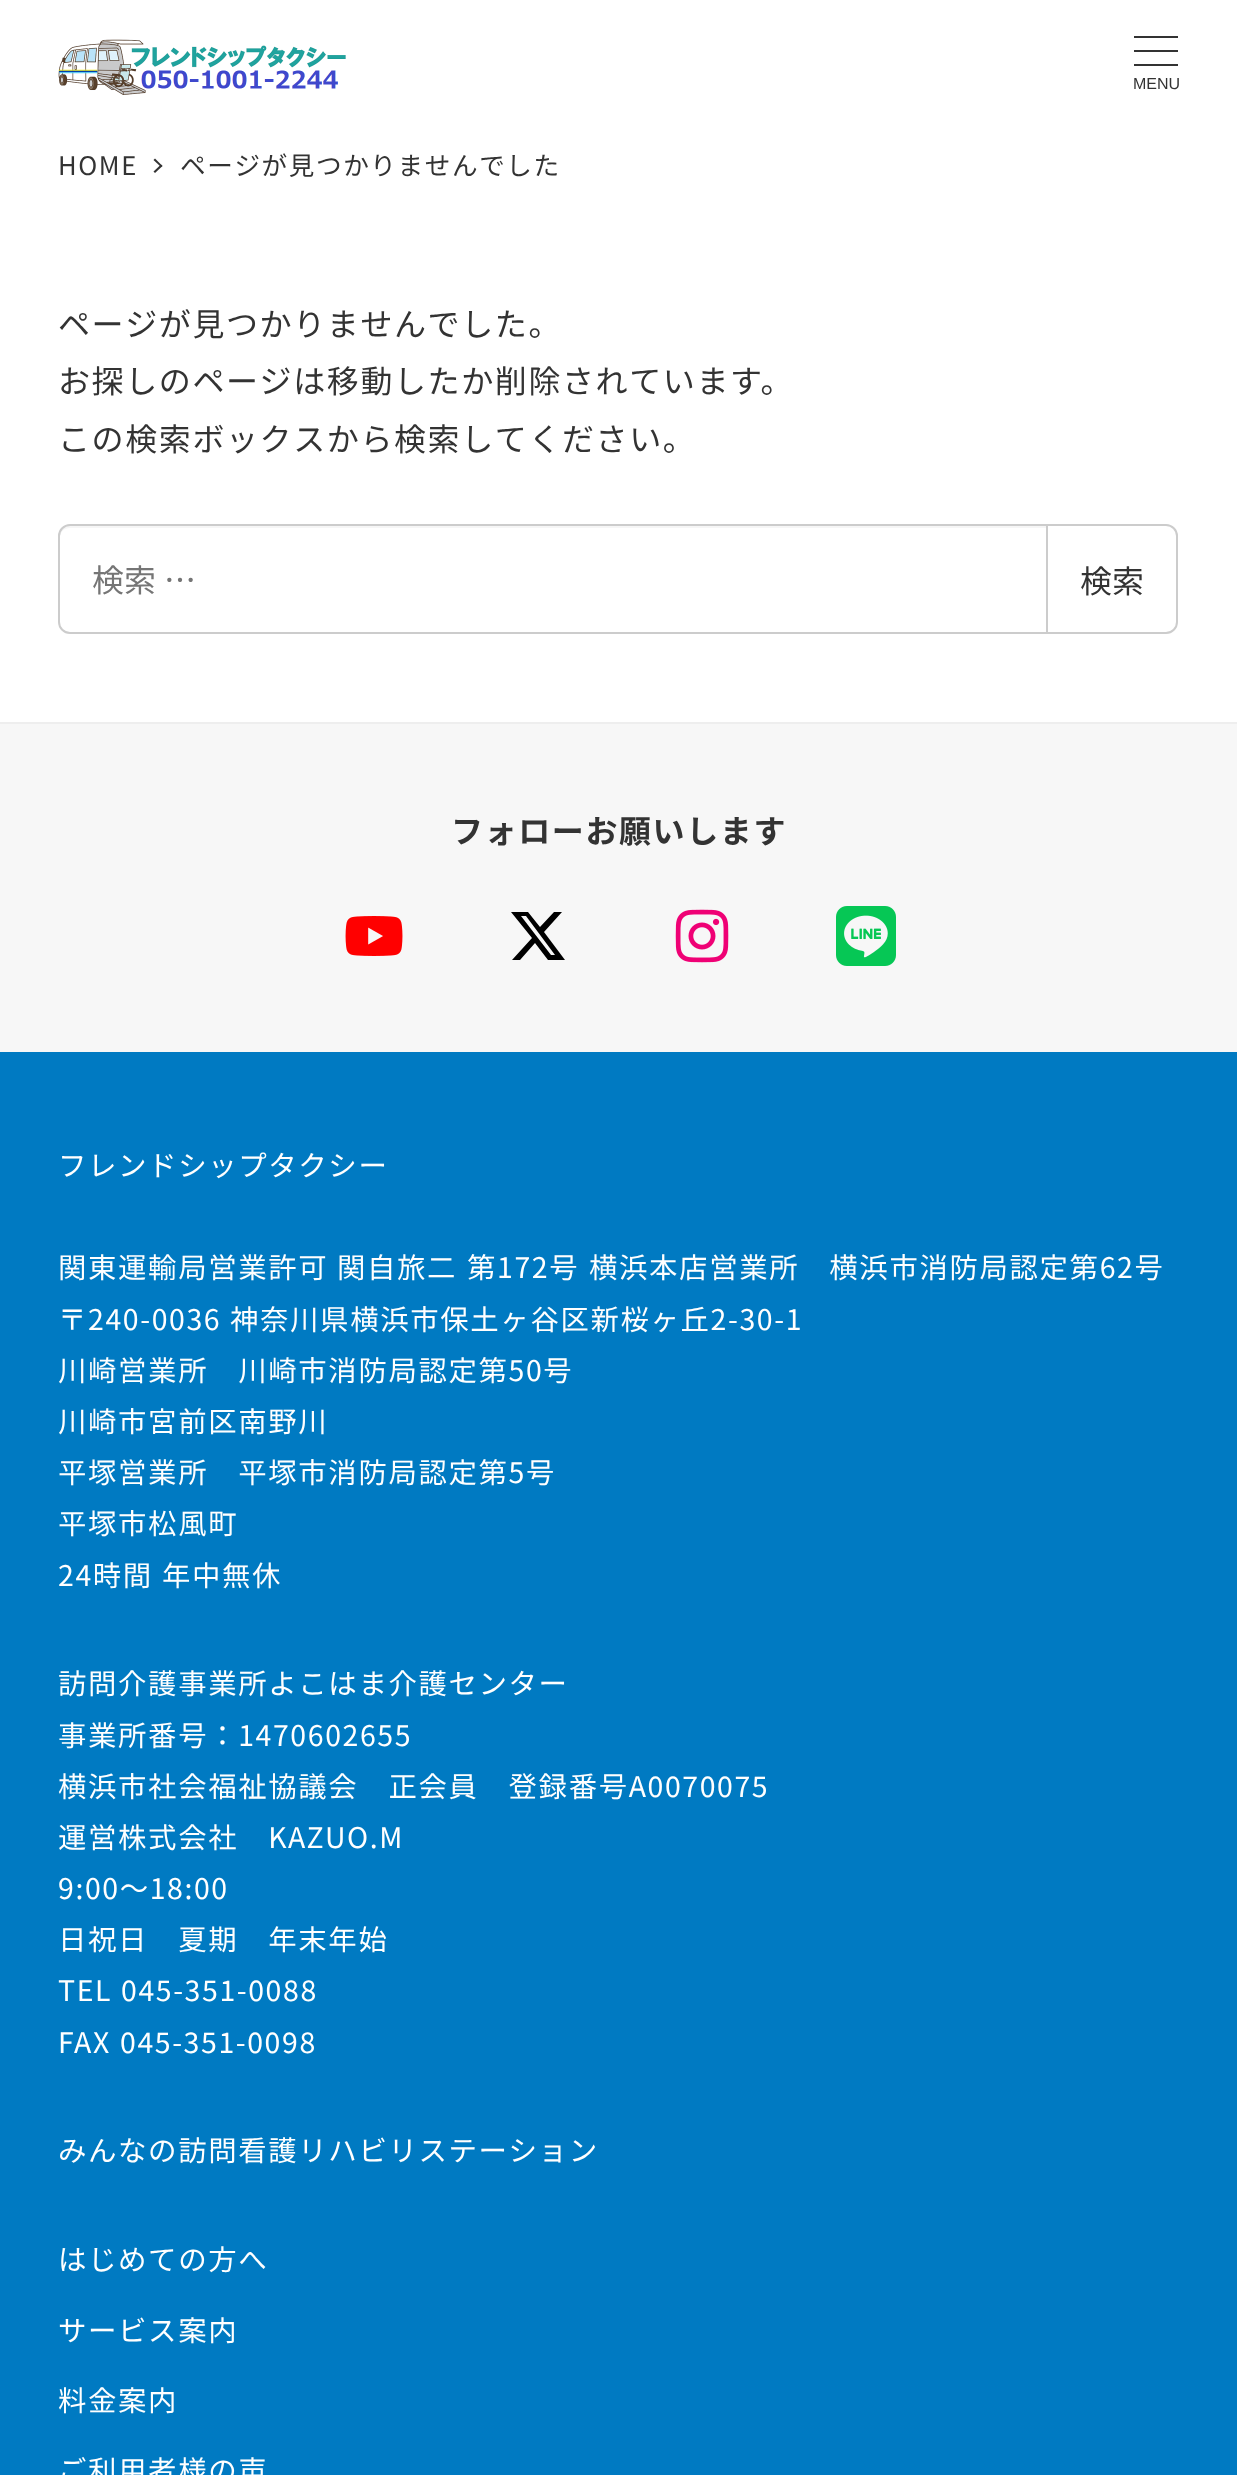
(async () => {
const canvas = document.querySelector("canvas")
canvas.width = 1237
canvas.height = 2475
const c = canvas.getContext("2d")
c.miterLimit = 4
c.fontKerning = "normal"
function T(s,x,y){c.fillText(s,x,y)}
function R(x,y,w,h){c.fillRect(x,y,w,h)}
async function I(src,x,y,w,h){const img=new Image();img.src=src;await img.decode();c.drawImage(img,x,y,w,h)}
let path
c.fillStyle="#fff"
R(0,0,1237,2475)
await I("1.png",58,39,288,56)
c.fillStyle="#333"
R(1134,36,44,2)
R(1134,50,44,2)
R(1134,64,44,2)
c.font="16px Liberation Sans"
T("MENU",1133,89)
c.letterSpacing="1.6px"
c.font="25.6px Noto Sans JP"
T("HOME",58,175)
path = new Path2D("M155 158.5l7.5 7.5l-1.5 1l-7.5-7z")
c.fill(path)
path = new Path2D("M161 164.5l1.5 1.5l-7.5 7l-1.5-1.5z")
c.fill(path)
T("ページが見つかりませんでした",180,175)
c.font="32px Noto Sans JP"
T("ページが見つかりませんでした。",58,336)
T("お探しのページは移動したか削除されています。",58,393)
T("この検索ボックスから検索してください。",58,451)
c.beginPath()
c.roundRect(1047,525,130,108,[0,11,11,0])
c.strokeStyle="#ccc"
c.lineWidth=2
c.stroke()
c.fillStyle="#fff"
c.beginPath()
c.roundRect(58,524,990,110,[12,0,0,12])
c.fill()
c.fillStyle="#f6f6f6"
path = new Path2D("M70 528h976v-2h-976c-6 0-10 4-10 10v2c0-6 4-10 10-10z")
c.fill(path)
c.beginPath()
c.roundRect(59,525,988,108,[11,0,0,11])
c.stroke()
c.letterSpacing="0px"
c.fillStyle="#757575"
T("検索",92,592)
T("…",164,592)
c.fillStyle="#333"
T("検索",1080,593)
c.fillStyle="#eee"
R(0,722,1237,2)
c.fillStyle="#f7f7f7"
R(0,724,1237,328)
c.letterSpacing="1.6px"
c.font="bold 32px Noto Sans JP"
c.fillStyle="#333"
T("フォローお願いします",451,843)
await I("2.png",345,916,58,40)
c.fillStyle="#000"
path = new Path2D("M554 912h8l-18 20l21 28h-17l-13-17l-15 17h-8l20-22l-21-26h17l12 15zm-3 43h4l-29-39h-5z")
c.fill(path)
await I("3.png",675,909,54,54)
await I("4.png",836,906,60,60)
c.fillStyle="#007ac2"
R(0,1052,1237,1423)
c.font="28.45px Noto Sans JP"
c.fillStyle="#fff"
T("フレンドシップタクシー",58,1176)
T("関東運輸局営業許可",58,1278)
T("関自旅二",337,1278)
T("第172号",467,1278)
T("横浜本店営業所　横浜市消防局認定第62号",589,1278)
T("〒240-0036",58,1330)
T("神奈川県横浜市保土ヶ谷区新桜ヶ丘2-30-1",230,1330)
T("川崎営業所　川崎市消防局認定第50号",58,1381)
T("川崎市宮前区南野川",58,1432)
T("平塚営業所　平塚市消防局認定第5号",58,1483)
T("平塚市松風町",58,1534)
T("24時間",58,1586)
T("年中無休",162,1586)
T("訪問介護事業所よこはま介護センター",58,1694)
T("事業所番号：1470602655",58,1746)
T("横浜市社会福祉協議会　正会員　登録番号A0070075",58,1797)
T("運営株式会社　KAZUO.M",58,1848)
T("9:00～18:00",58,1899)
T("日祝日　夏期　年末年始",58,1950)
T("TEL",58,2001)
T("045-351-0088",121,2001)
T("FAX",58,2053)
T("045-351-0098",120,2053)
T("みんなの訪問看護リハビリステーション",58,2161)
T("はじめての方へ",58,2270)
T("サービス案内",58,2341)
T("料金案内",58,2411)
T("ご利用者様の声",58,2481)
})()
